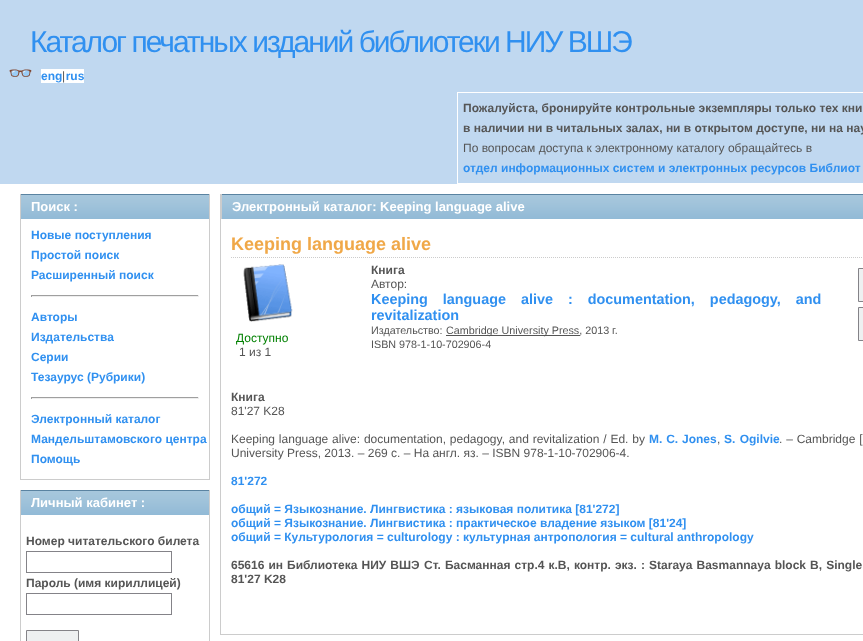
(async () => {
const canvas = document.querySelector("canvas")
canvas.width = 863
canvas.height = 641
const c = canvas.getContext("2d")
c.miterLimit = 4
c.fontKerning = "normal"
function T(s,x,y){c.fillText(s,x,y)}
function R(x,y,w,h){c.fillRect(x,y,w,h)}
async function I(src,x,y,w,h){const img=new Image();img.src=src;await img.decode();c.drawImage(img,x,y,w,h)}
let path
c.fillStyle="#fff"
R(0,0,863,641)
c.fillStyle="#c0d8f0"
R(0,0,863,184)
c.letterSpacing="-2px"
c.font="30px Liberation Sans"
c.fillStyle="#3090f0"
T("Каталог печатных изданий библиотеки НИУ ВШЭ",30,52)
c.letterSpacing="0px"
c.font="bold 20px Noto Color Emoji"
T("👓",8,80)
c.fillStyle="#fff"
R(41,69,43,14)
c.font="bold 12px Liberation Sans"
c.fillStyle="#3090f0"
T("eng rus",41,80)
c.font="12px Liberation Sans"
c.fillStyle="#555"
T("|",62,80)
c.strokeStyle="#fff"
c.strokeRect(457.5,92.5,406,91)
c.font="bold 12px Liberation Sans"
T("Пожалуйста, бронируйте контрольные экземпляры только тех кни",463,112)
T("в наличии ни в читальных залах, ни в открытом доступе, ни на нау",463,132)
c.font="12px Liberation Sans"
T("По вопросам доступа к электронному каталогу обращайтесь в",463,152)
c.font="bold 12px Liberation Sans"
c.fillStyle="#3090f0"
T("отдел информационных систем и электронных ресурсов Библиот",463,172)
await I("1.png",21,194,188,25)
c.fillStyle="#ccc"
R(209,194,1,286)
R(20,194,1,25)
c.font="bold 13px Liberation Sans"
c.fillStyle="#fff"
T("Поиск :",31,211)
c.fillStyle="#ccc"
R(20,479,190,1)
R(20,219,1,261)
c.font="bold 12px Liberation Sans"
c.fillStyle="#3090f0"
T("Новые поступления",31,239)
T("Простой поиск",31,259)
T("Расширенный поиск",31,279)
c.fillStyle="#9f9f9f"
R(31,295,168,1)
c.fillStyle="#eee"
R(198,295,1,2)
R(31,296,168,1)
c.fillStyle="#9f9f9f"
R(31,295,1,2)
c.fillStyle="#3090f0"
T("Авторы",31,321)
T("Издательства",31,341)
T("Серии",31,361)
T("Тезаурус (Рубрики)",31,381)
c.fillStyle="#9f9f9f"
R(31,397,168,1)
c.fillStyle="#eee"
R(198,397,1,2)
R(31,398,168,1)
c.fillStyle="#9f9f9f"
R(31,397,1,2)
c.fillStyle="#3090f0"
T("Электронный каталог",31,423)
T("Мандельштамовского центра",31,443)
T("Помощь",31,463)
await I("1.png",21,490,188,25)
c.fillStyle="#ccc"
R(209,490,1,151)
R(20,490,1,151)
c.font="bold 13px Liberation Sans"
c.fillStyle="#fff"
T("Личный кабинет :",31,507)
c.font="bold 12px Liberation Sans"
c.fillStyle="#555"
T("Номер читательского билета",26,545)
c.strokeStyle="#848388"
c.strokeRect(26.5,551.5,145,21)
T("Пароль (имя кириллицей)",26,587)
c.strokeRect(26.5,593.5,145,21)
c.fillStyle="#eef0f1"
c.beginPath()
c.rect(26.5,630.5,52,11)
c.fill()
c.stroke()
c.fillStyle="#ccc"
R(220,634,643,1)
R(220,194,1,441)
await I("2.png",222,194,641,25)
R(221,194,1,25)
c.font="bold 13px Liberation Sans"
c.fillStyle="#fff"
T("Электронный каталог: Keeping language alive",232,211)
path = new Path2D("M231 257.5h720")
c.strokeStyle="#ccc"
c.setLineDash([1,1])
c.stroke(path)
c.font="bold 18px Liberation Sans"
c.fillStyle="#f0a848"
T("Keeping language alive",231,250)
c.font="bold 12px Liberation Sans"
c.fillStyle="#555"
T("Книга",371,274)
c.font="12px Liberation Sans"
T("Автор:",371,288)
c.wordSpacing="11px"
c.font="bold 14.4px Liberation Sans"
c.fillStyle="#3090f0"
T("Keeping language alive : documentation, pedagogy, and",371,304)
c.wordSpacing="0px"
T("revitalization",371,320)
c.font="10.75px Liberation Sans"
c.fillStyle="#555"
T("Издательство:",371,334)
R(446,335,134,1)
T("Cambridge University Press, 2013 г.",446,334)
T("ISBN 978-1-10-702906-4",371,348)
c.fillStyle="#eef0f1"
c.beginPath()
c.rect(858.5,268.5,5,33)
c.fill()
c.strokeStyle="#848388"
c.setLineDash([])
c.stroke()
c.beginPath()
c.rect(858.5,307.5,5,33)
c.fill()
c.stroke()
await I("3.png",243,264,50,58)
c.font="12px Liberation Sans"
c.fillStyle="#008000"
T("Доступно",236,342)
c.fillStyle="#555"
T("1 из 1",239,356)
c.font="bold 12px Liberation Sans"
T("Книга",231,401)
c.font="12px Liberation Sans"
T("81'27 K28",231,415)
c.wordSpacing="0.5px"
T("Keeping language alive: documentation, pedagogy, and revitalization / Ed. by",231,443)
c.font="bold 12px Liberation Sans"
c.fillStyle="#3090f0"
T("M. C. Jones",649,443)
c.wordSpacing="0px"
c.font="12px Liberation Sans"
c.fillStyle="#555"
T(",",717,443)
c.wordSpacing="1px"
c.font="bold 12px Liberation Sans"
c.fillStyle="#3090f0"
T("S. Ogilvie",724,443)
c.wordSpacing="0.5px"
c.font="12px Liberation Sans"
c.fillStyle="#555"
T(". – Cambridge [",779,443)
c.wordSpacing="0px"
T("University Press, 2013. – 269 с. – На англ. яз. – ISBN 978-1-10-702906-4.",231,457)
c.font="bold 12px Liberation Sans"
c.fillStyle="#3090f0"
T("81'272",231,485)
T("общий = Языкознание. Лингвистика : языковая политика [81'272]",231,513)
T("общий = Языкознание. Лингвистика : практическое владение языком [81'24]",231,527)
T("общий = Культурология = culturology : культурная антропология = cultural anthropology",231,541)
c.wordSpacing="0.75px"
c.fillStyle="#555"
T("65616 ин",231,569)
T("Библиотека НИУ ВШЭ",287,569)
T("Ст. Басманная стр.4 к.В, контр. экз. : Staraya Basmannaya block B, Single",424,569)
c.wordSpacing="0px"
T("81'27 K28",231,583)
})()
